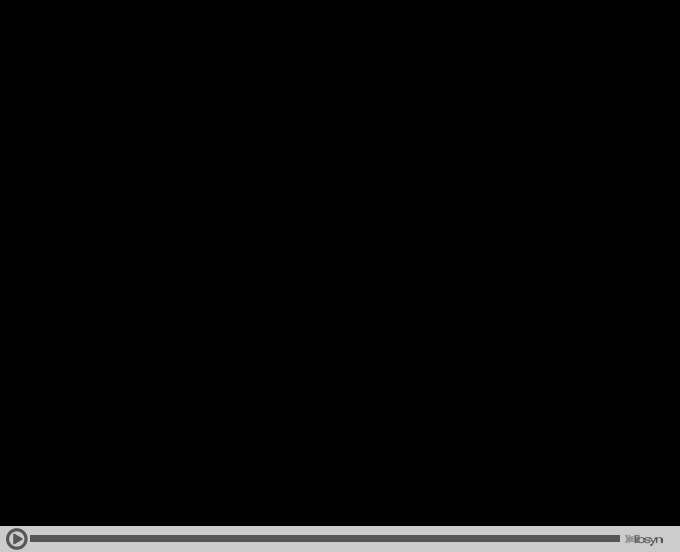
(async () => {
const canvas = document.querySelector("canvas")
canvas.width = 680
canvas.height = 552
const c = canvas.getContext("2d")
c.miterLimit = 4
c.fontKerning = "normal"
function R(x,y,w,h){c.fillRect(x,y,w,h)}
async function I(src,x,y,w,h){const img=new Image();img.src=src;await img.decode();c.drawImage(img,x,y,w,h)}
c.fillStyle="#000"
R(0,0,680,552)
c.fillStyle="#ccc"
R(0,526,680,26)
await I("1.png",6,528,22,22)
c.fillStyle="#575757"
R(30,535,590,7)
await I("2.png",625,534,38,12)
})()
